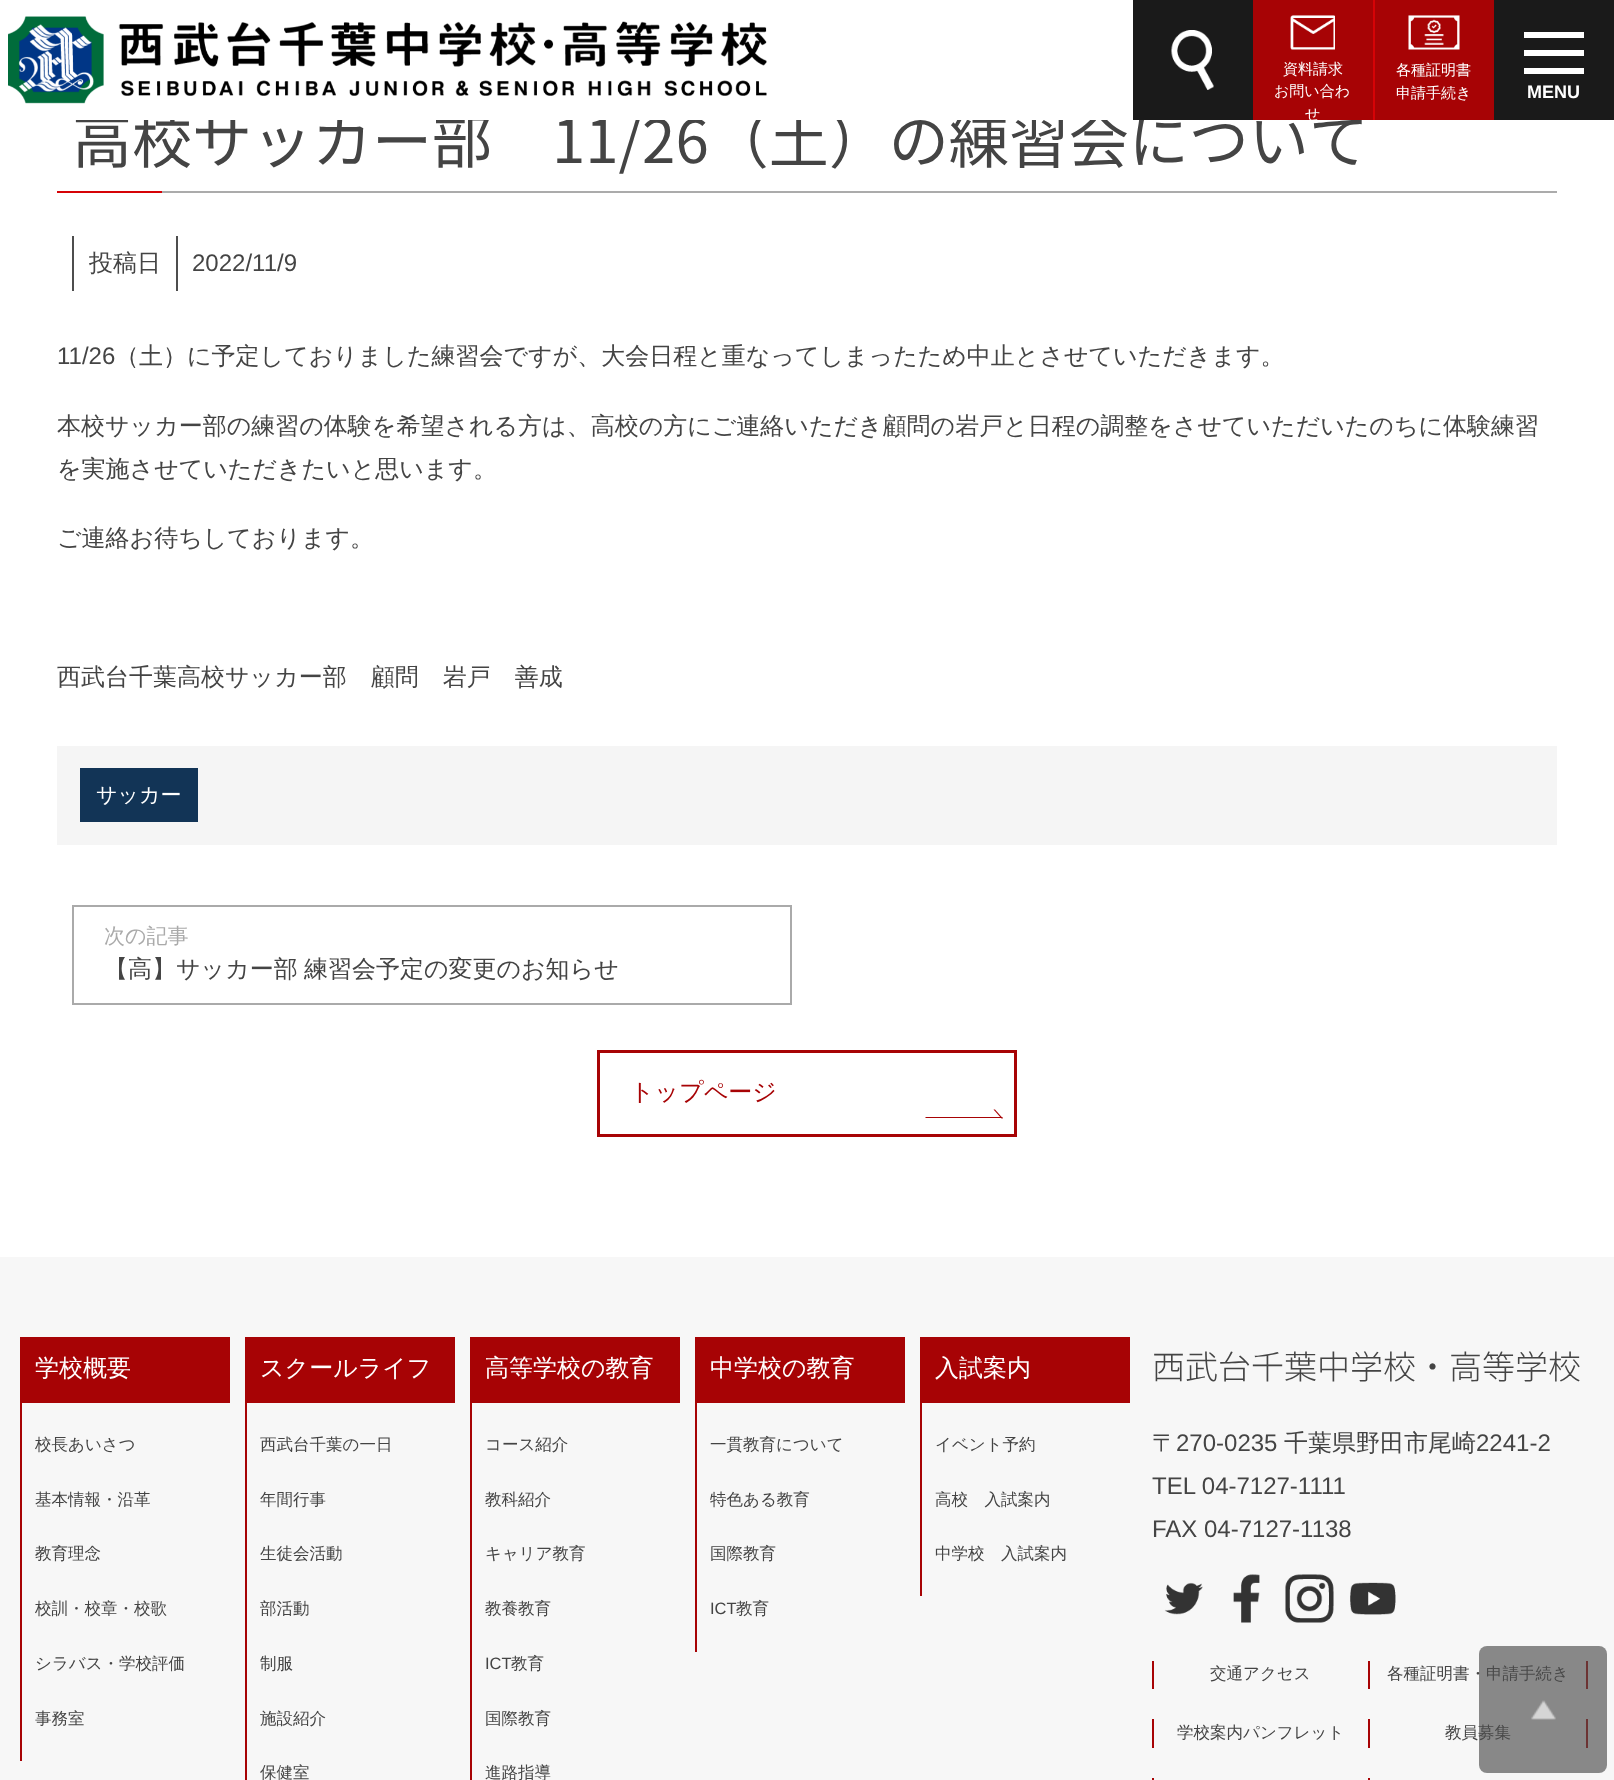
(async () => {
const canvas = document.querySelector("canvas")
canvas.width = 1614
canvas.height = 1780
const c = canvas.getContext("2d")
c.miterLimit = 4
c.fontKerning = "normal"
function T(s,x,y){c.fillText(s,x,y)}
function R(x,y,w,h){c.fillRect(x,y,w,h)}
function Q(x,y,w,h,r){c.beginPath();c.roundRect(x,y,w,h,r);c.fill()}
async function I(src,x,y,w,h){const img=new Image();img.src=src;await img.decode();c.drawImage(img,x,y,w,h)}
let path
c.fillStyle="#fff"
R(0,0,1614,1780)
c.font="60px Noto Sans JP"
c.fillStyle="#444"
T("高校サッカー部　11/26（土）の練習会について",72,163)
c.fillStyle="#fff"
R(75,111,1032,9)
await I("1.png",8,16,759,88)
c.fillStyle="#1a1a1a"
R(1133,0,120,120)
await I("2.png",1171,30,43,60)
c.fillStyle="#a70305"
R(1253,0,120,120)
await I("3.png",1290,15,45,35)
c.font="500 15px WenQuanYi Zen Hei"
c.fillStyle="#fff"
T("資料請求",1283,74)
T("お問い合わ",1274,96)
T("せ",1305,119)
c.fillStyle="#a70305"
R(1375,0,119,120)
c.fillStyle="#d60307"
R(1373,0,2,120)
await I("4.png",1408,15,52,35)
c.fillStyle="#fff"
T("各種証明書",1396,75)
T("申請手続き",1396,98)
c.fillStyle="#1a1a1a"
R(1494,0,120,120)
c.fillStyle="#fff"
R(1524,32,60,6)
R(1524,50,60,6)
R(1524,68,60,6)
c.font="bold 18px Liberation Sans"
T("MENU",1527,98)
c.fillStyle="#d60307"
R(57,191,105,2)
c.fillStyle="#ababab"
R(162,191,1395,2)
c.fillStyle="#4d4d4d"
R(176,236,2,55)
R(72,236,2,55)
c.font="500 24px WenQuanYi Zen Hei"
c.fillStyle="#444"
T("投稿日",89,271)
c.font="24px Liberation Sans"
T("2022/11/9",192,271)
T("11/26",57,364)
c.font="500 24px WenQuanYi Zen Hei"
T("（土）に予定しておりました練習会ですが、大会日程と重なってしまったため中止とさせていただきます。",115,364)
T("本校サッカー部の練習の体験を希望される方は、高校の方にご連絡いただき顧問の岩戸と日程の調整をさせていただいたのちに体験練習",57,434)
T("を実施させていただきたいと思います。",57,477)
T("ご連絡お待ちしております。",57,546)
T("西武台千葉高校サッカー部　顧問　岩戸　善成",57,685)
c.fillStyle="#f5f5f5"
R(57,746,1500,99)
c.fillStyle="#123456"
R(80,768,118,54)
c.font="500 21px WenQuanYi Zen Hei"
c.fillStyle="#fff"
T("サッカー",96,802)
c.strokeStyle="#aaa"
c.lineWidth=2
c.strokeRect(73,906,718,98)
c.fillStyle="#aaa"
T("次の記事",104,943)
c.wordSpacing="-1px"
c.font="500 24px WenQuanYi Zen Hei"
c.fillStyle="#444"
T("【高】サッカー部 練習会予定の変更のお知らせ",104,977)
c.strokeStyle="#a70305"
c.lineWidth=3
c.strokeRect(598.5,1051.5,417,84)
c.wordSpacing="0px"
c.fillStyle="#a70305"
T("トップページ",630,1100)
path = new Path2D("M993.5 1109.5h1.5l8 9h-1.5z")
c.fill(path)
path = new Path2D("M925 1117h77l1 1h-77z")
c.fill(path)
c.fillStyle="#f7f7f7"
R(0,1257,1614,523)
c.fillStyle="#a70305"
R(20,1337,2,424)
R(22,1337,208,66)
c.fillStyle="#fff"
T("学校概要",35,1376)
c.font="500 16.5px WenQuanYi Zen Hei"
c.fillStyle="#444"
T("校長あいさつ",35,1450)
T("基本情報・沿革",35,1505)
T("教育理念",35,1559)
T("校訓・校章・校歌",35,1614)
T("シラバス・学校評価",35,1669)
T("事務室",35,1724)
c.fillStyle="#a70305"
R(245,1337,2,443)
R(247,1337,208,66)
c.font="500 24px WenQuanYi Zen Hei"
c.fillStyle="#fff"
T("スクールライフ",260,1376)
c.font="500 16.5px WenQuanYi Zen Hei"
c.fillStyle="#444"
T("西武台千葉の一日",260,1450)
T("年間行事",260,1505)
T("生徒会活動",260,1559)
T("部活動",260,1614)
T("制服",260,1669)
T("施設紹介",260,1724)
T("保健室",260,1778)
c.fillStyle="#a70305"
R(470,1337,2,443)
R(472,1337,208,66)
c.font="500 24px WenQuanYi Zen Hei"
c.fillStyle="#fff"
T("高等学校の教育",485,1376)
c.font="500 16.5px WenQuanYi Zen Hei"
c.fillStyle="#444"
T("コース紹介",485,1450)
T("教科紹介",485,1505)
T("キャリア教育",485,1559)
T("教養教育",485,1614)
c.font="16.5px Liberation Sans"
T("ICT",485,1669)
c.font="500 16.5px WenQuanYi Zen Hei"
T("教育",511,1669)
T("国際教育",485,1724)
T("進路指導",485,1778)
c.fillStyle="#a70305"
R(695,1337,2,315)
R(697,1337,208,66)
c.font="500 24px WenQuanYi Zen Hei"
c.fillStyle="#fff"
T("中学校の教育",710,1376)
c.font="500 16.5px WenQuanYi Zen Hei"
c.fillStyle="#444"
T("一貫教育について",710,1450)
T("特色ある教育",710,1505)
T("国際教育",710,1559)
c.font="16.5px Liberation Sans"
T("ICT",710,1614)
c.font="500 16.5px WenQuanYi Zen Hei"
T("教育",736,1614)
c.fillStyle="#a70305"
R(920,1337,2,259)
R(922,1337,208,66)
c.font="500 24px WenQuanYi Zen Hei"
c.fillStyle="#fff"
T("入試案内",935,1376)
c.font="500 16.5px WenQuanYi Zen Hei"
c.fillStyle="#444"
T("イベント予約",935,1450)
T("高校　入試案内",935,1505)
T("中学校　入試案内",935,1559)
c.font="300 33px Noto Sans JP"
T("西武台千葉中学校・高等学校",1152,1379)
c.font="500 24px WenQuanYi Zen Hei"
T("〒",1152,1451)
c.font="24px Liberation Sans"
T("270-0235",1176,1451)
c.font="500 24px WenQuanYi Zen Hei"
T("千葉県野田市尾崎",1284,1451)
c.font="24px Liberation Sans"
T("2241-2",1476,1451)
T("TEL 04-7127-1111",1152,1494)
T("FAX 04-7127-1138",1152,1537)
await I("5.png",1164,1582,39,33)
await I("6.png",1233,1574,27,49)
await I("7.png",1285,1574,49,49)
await I("8.png",1350,1582,46,33)
c.fillStyle="#a70305"
R(1368,1661,2,28)
R(1152,1661,2,28)
c.font="500 16.5px WenQuanYi Zen Hei"
c.fillStyle="#444"
T("交通アクセス",1210,1679)
c.fillStyle="#a70305"
R(1586,1661,2,28)
c.fillStyle="#444"
T("各種証明書・申請手続き",1387,1679)
c.fillStyle="#a70305"
R(1368,1719,2,29)
R(1152,1719,2,29)
c.fillStyle="#444"
T("学校案内パンフレット",1177,1738)
c.fillStyle="#a70305"
R(1586,1719,2,29)
c.fillStyle="#444"
T("教員募集",1445,1738)
c.fillStyle="#a70305"
R(1368,1778,2,2)
R(1152,1778,2,2)
c.fillStyle="#4d4d4da6"
Q(1479,1646,128,127,8)
await I("9.png",1531,1700,25,20)
})()
